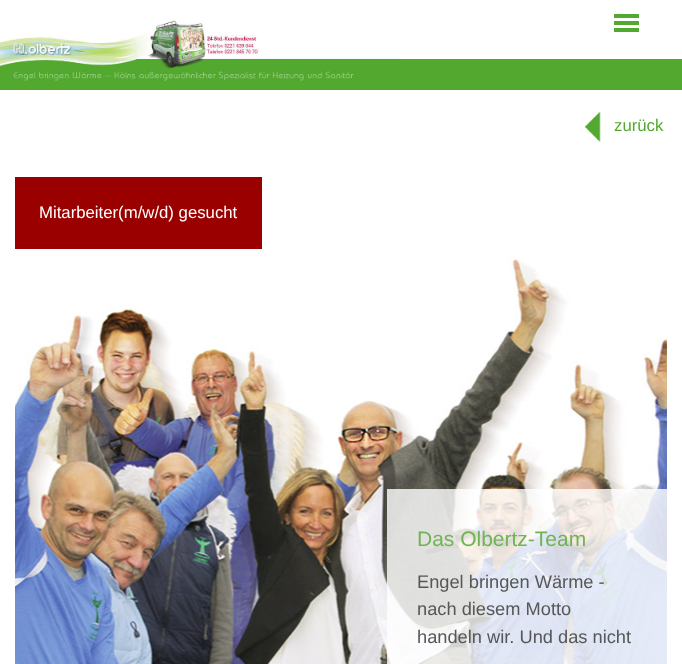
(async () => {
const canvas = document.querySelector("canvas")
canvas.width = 682
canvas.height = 664
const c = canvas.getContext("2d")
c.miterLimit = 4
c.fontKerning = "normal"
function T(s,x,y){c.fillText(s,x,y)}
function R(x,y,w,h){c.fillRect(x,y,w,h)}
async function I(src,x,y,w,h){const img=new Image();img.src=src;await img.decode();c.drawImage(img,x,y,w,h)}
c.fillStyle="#fff"
R(0,0,682,664)
c.fillStyle="#53a82f"
R(0,59,682,31)
await I("1.png",0,19,400,63)
await I("2.png",614,14,25,18)
await I("3.png",584,111,17,31)
c.font="16.75px Liberation Sans"
T("zurück",614,131)
c.fillStyle="#9a0000"
R(15,177,247,72)
c.fillStyle="#fff"
T("Mitarbeiter(m/w/d) gesucht",39,218)
await I("4.png",15,249,652,415)
c.fillStyle="#ffffffcc"
R(387,489,280,175)
c.font="21px Liberation Sans"
c.fillStyle="#70b453"
T("Das Olbertz-Team",417,546)
c.font="18.25px Liberation Sans"
c.fillStyle="#565758"
T("Engel bringen Wärme -",417,588)
T("nach diesem Motto",417,615)
T("handeln wir. Und das nicht",417,643)
})()
